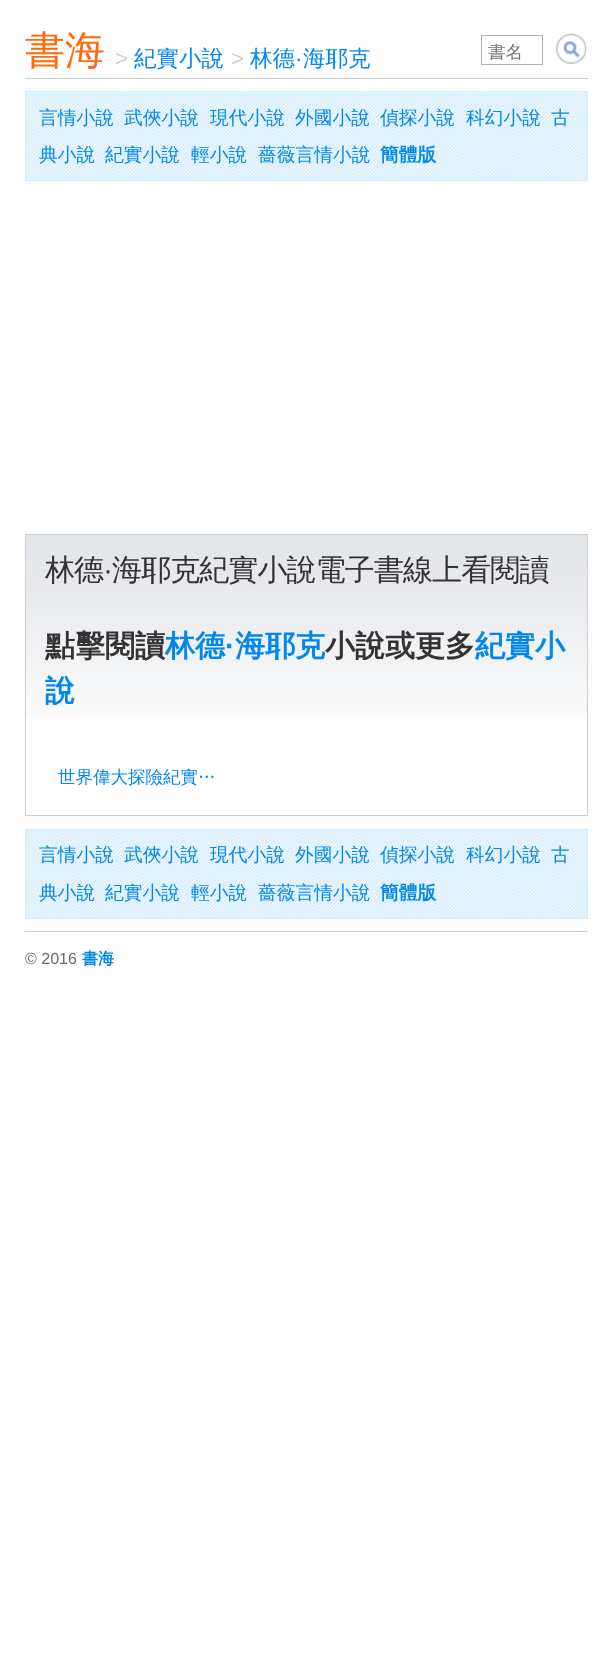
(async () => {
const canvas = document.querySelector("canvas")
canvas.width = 612
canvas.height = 1673
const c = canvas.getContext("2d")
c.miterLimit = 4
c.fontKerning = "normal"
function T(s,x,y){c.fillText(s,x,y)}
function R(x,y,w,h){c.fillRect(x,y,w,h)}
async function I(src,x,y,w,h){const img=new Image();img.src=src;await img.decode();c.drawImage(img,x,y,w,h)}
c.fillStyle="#fff"
R(0,0,612,1673)
c.fillStyle="#caced1"
R(25,78,563,1)
c.font="500 40px WenQuanYi Zen Hei"
c.fillStyle="#ff690a"
T("書海",25,64)
c.font="22.5px Liberation Sans"
c.fillStyle="#caced1"
T(">",115,66)
c.font="500 22.5px WenQuanYi Zen Hei"
c.fillStyle="#08e"
T("紀實小說",134,66)
c.font="22.5px Liberation Sans"
c.fillStyle="#caced1"
T(">",231,66)
c.font="500 22.5px WenQuanYi Zen Hei"
c.fillStyle="#08e"
T("林德",250,66)
c.font="22.5px Liberation Sans"
T("·",295,66)
c.font="500 22.5px WenQuanYi Zen Hei"
T("海耶克",303,66)
c.strokeStyle="#b2b2b2"
c.strokeRect(481.5,35.5,61,29)
c.font="500 17.5px WenQuanYi Zen Hei"
c.fillStyle="#757575"
T("書名",488,58)
await I("1.png",556,33,31,31)
await I("2.png",25,92,563,90)
c.strokeStyle="#d4ecfe"
c.strokeRect(25.5,91.5,562,89)
c.font="500 18.75px WenQuanYi Zen Hei"
c.fillStyle="#08e"
T("言情小說",39,124)
T("武俠小說",124,124)
T("現代小說",210,124)
T("外國小說",295,124)
T("偵探小說",380,124)
T("科幻小說",466,124)
T("古",551,124)
T("典小說",39,161)
T("紀實小說",105,161)
T("輕小說",191,161)
T("薔薇言情小說",258,161)
c.font="bold 18.75px WenQuanYi Zen Hei"
T("簡體版",380,161)
await I("3.png",26,535,561,182)
c.strokeStyle="#caced1"
c.strokeRect(25.5,534.5,562,281)
c.letterSpacing="-0.9px"
c.font="500 30px WenQuanYi Zen Hei"
c.fillStyle="#333"
T("林德",45,580)
c.font="30px Liberation Sans"
T("·",103,580)
c.font="500 30px WenQuanYi Zen Hei"
T("海耶克紀實小說電子書線上看閱讀",112,580)
c.letterSpacing="0px"
c.font="bold 30px WenQuanYi Zen Hei"
T("點擊閱讀",45,656)
c.fillStyle="#08e"
T("林德",165,656)
c.font="bold 30px Liberation Sans"
T("·",225,656)
c.font="bold 30px WenQuanYi Zen Hei"
T("海耶克",235,656)
c.fillStyle="#333"
T("小說或更多",325,656)
c.fillStyle="#08e"
T("紀實小",475,656)
T("說",45,701)
c.font="500 17.5px WenQuanYi Zen Hei"
T("世界偉大探險紀實…",58,783)
await I("4.png",25,828,563,90)
c.strokeStyle="#d4ecfe"
c.strokeRect(25.5,829.5,562,89)
c.font="500 18.75px WenQuanYi Zen Hei"
T("言情小說",39,861)
T("武俠小說",124,861)
T("現代小說",210,861)
T("外國小說",295,861)
T("偵探小說",380,861)
T("科幻小說",466,861)
T("古",551,861)
T("典小說",39,899)
T("紀實小說",105,899)
T("輕小說",191,899)
T("薔薇言情小說",258,899)
c.font="bold 18.75px WenQuanYi Zen Hei"
T("簡體版",380,899)
c.fillStyle="#caced1"
R(25,931,563,1)
c.font="16px Liberation Sans"
c.fillStyle="#656b6f"
T("© 2016",25,964)
c.font="bold 16px WenQuanYi Zen Hei"
c.fillStyle="#08e"
T("書海",82,964)
})()
